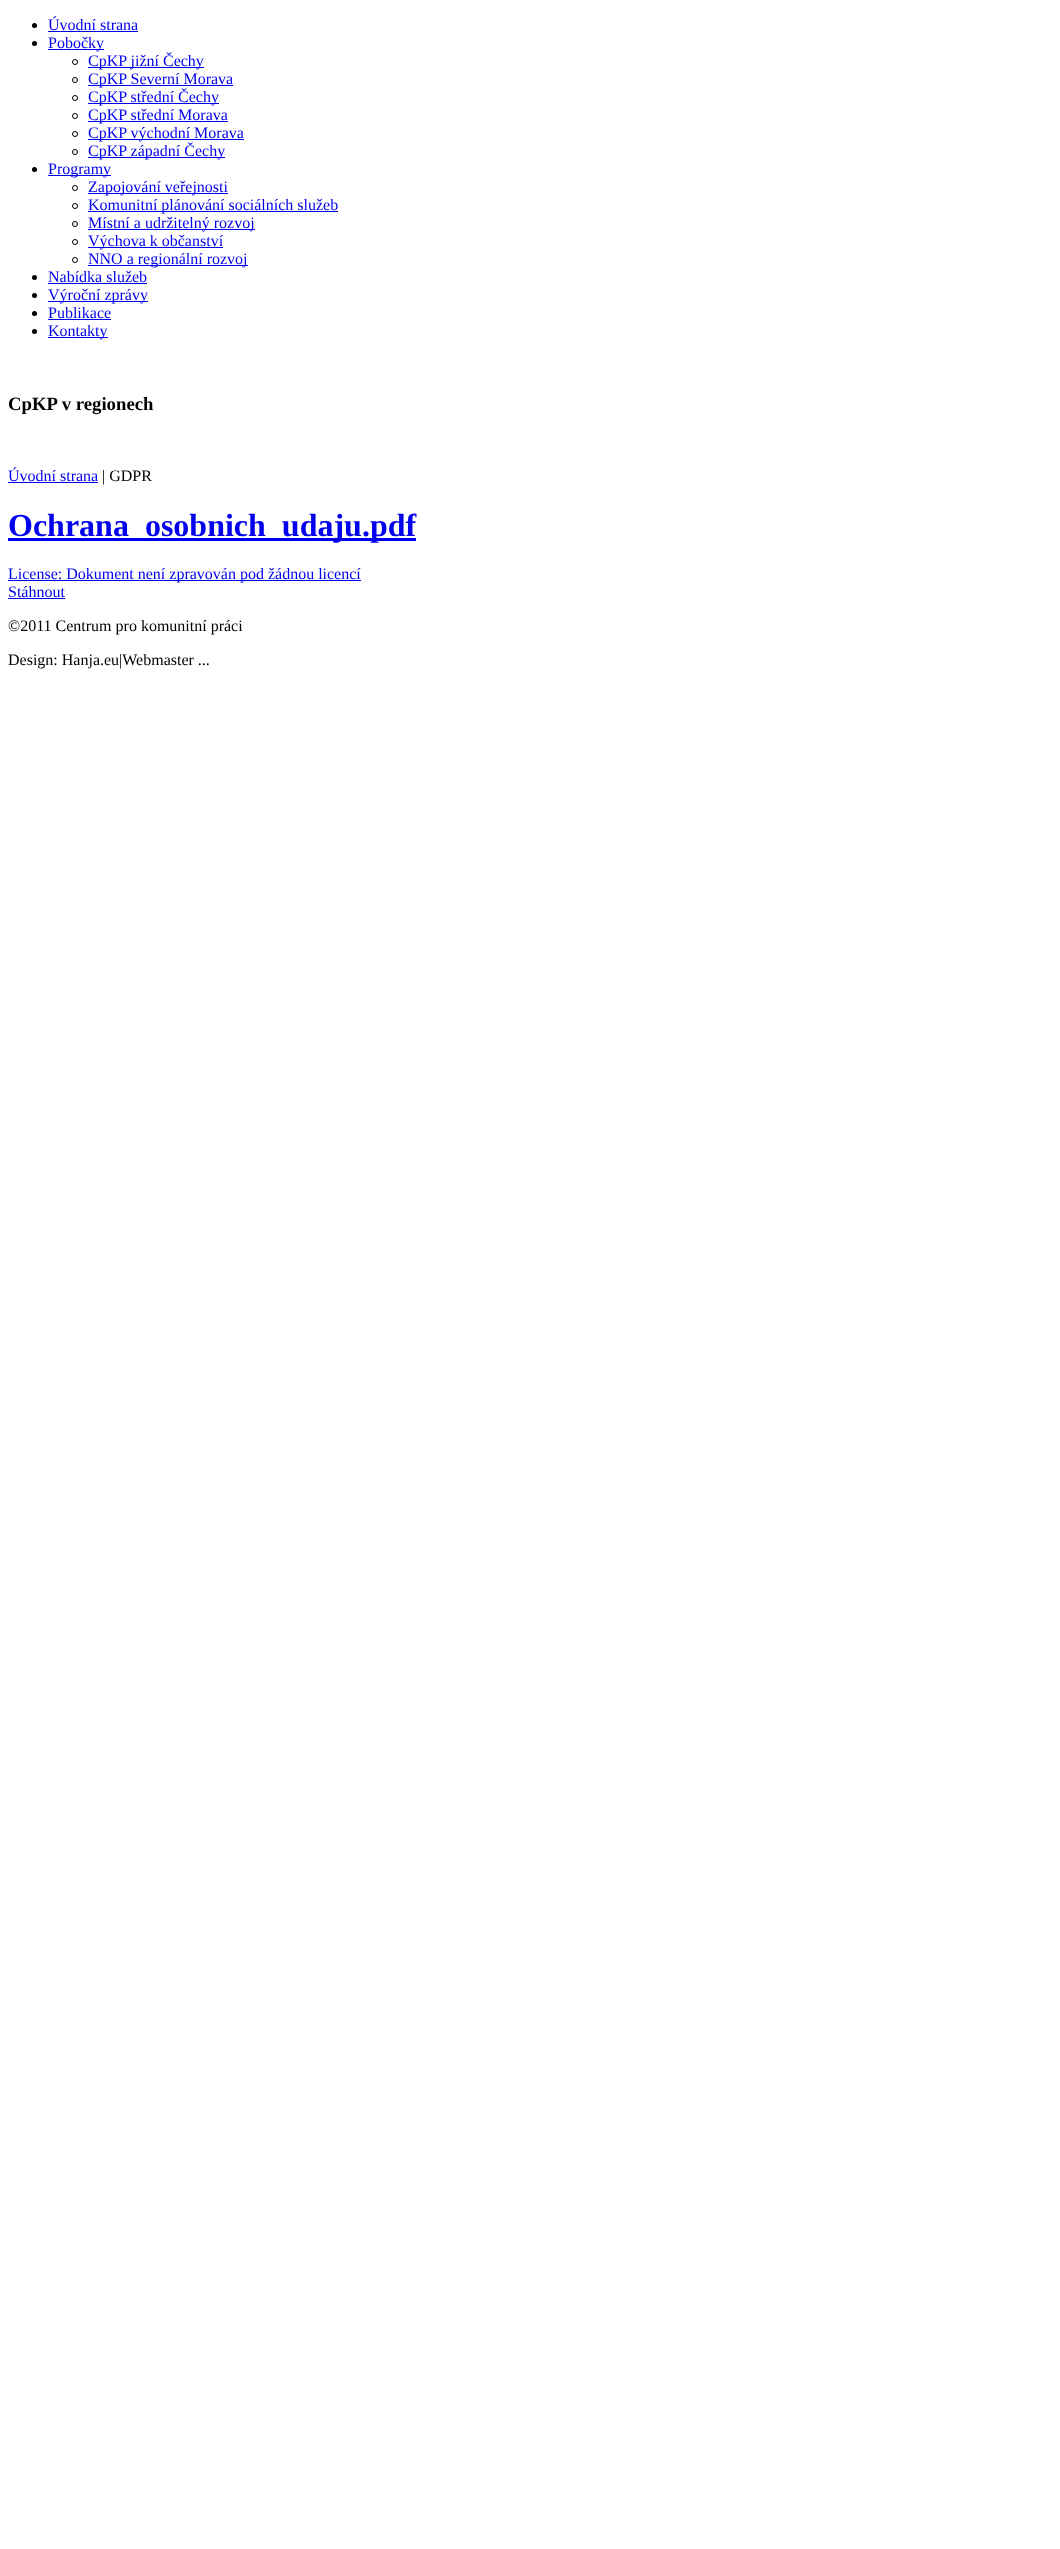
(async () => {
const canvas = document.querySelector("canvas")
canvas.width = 1060
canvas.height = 2549
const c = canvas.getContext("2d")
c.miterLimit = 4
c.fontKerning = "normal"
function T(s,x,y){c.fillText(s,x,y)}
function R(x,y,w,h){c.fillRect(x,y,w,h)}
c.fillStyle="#fff"
R(0,0,1060,2549)
c.fillStyle="#000"
c.beginPath()
c.arc(34.5,25.5,2.5,0,7)
c.fill()
c.font="16px Liberation Serif"
c.fillStyle="#00e"
T("Úvodní strana",48,30)
R(48,31,90,1)
c.fillStyle="#000"
c.beginPath()
c.arc(34.5,43.5,2.5,0,7)
c.fill()
c.fillStyle="#00e"
R(48,49,56,1)
T("Pobočky",48,48)
c.beginPath()
c.arc(75,62,2.5,0,7)
c.strokeStyle="#000"
c.stroke()
R(88,67,116,1)
T("CpKP jižní Čechy",88,66)
c.beginPath()
c.arc(75,80,2.5,0,7)
c.stroke()
R(88,85,145,1)
T("CpKP Severní Morava",88,84)
c.beginPath()
c.arc(75,98,2.5,0,7)
c.stroke()
R(88,103,131,1)
T("CpKP střední Čechy",88,102)
c.beginPath()
c.arc(75,116,2.5,0,7)
c.stroke()
R(88,121,140,1)
T("CpKP střední Morava",88,120)
c.beginPath()
c.arc(75,134,2.5,0,7)
c.stroke()
R(88,139,156,1)
T("CpKP východní Morava",88,138)
c.beginPath()
c.arc(75,152,2.5,0,7)
c.stroke()
R(88,157,137,1)
T("CpKP západní Čechy",88,156)
c.fillStyle="#000"
c.beginPath()
c.arc(34.5,169.5,2.5,0,7)
c.fill()
c.fillStyle="#00e"
R(48,175,63,1)
T("Programy",48,174)
c.beginPath()
c.arc(75,188,2.5,0,7)
c.stroke()
R(88,193,140,1)
T("Zapojování veřejnosti",88,192)
c.beginPath()
c.arc(75,206,2.5,0,7)
c.stroke()
R(88,211,250,1)
T("Komunitní plánování sociálních služeb",88,210)
c.beginPath()
c.arc(75,224,2.5,0,7)
c.stroke()
R(88,229,167,1)
T("Místní a udržitelný rozvoj",88,228)
c.beginPath()
c.arc(75,242,2.5,0,7)
c.stroke()
R(88,247,135,1)
T("Výchova k občanství",88,246)
c.beginPath()
c.arc(75,260,2.5,0,7)
c.stroke()
R(88,265,160,1)
T("NNO a regionální rozvoj",88,264)
c.fillStyle="#000"
c.beginPath()
c.arc(34.5,277.5,2.5,0,7)
c.fill()
c.fillStyle="#00e"
T("Nabídka služeb",48,282)
R(48,283,99,1)
c.fillStyle="#000"
c.beginPath()
c.arc(34.5,295.5,2.5,0,7)
c.fill()
c.fillStyle="#00e"
R(48,301,100,1)
T("Výroční zprávy",48,300)
c.fillStyle="#000"
c.beginPath()
c.arc(34.5,313.5,2.5,0,7)
c.fill()
c.fillStyle="#00e"
T("Publikace",48,318)
R(48,319,63,1)
c.fillStyle="#000"
c.beginPath()
c.arc(34.5,331.5,2.5,0,7)
c.fill()
c.fillStyle="#00e"
R(48,337,60,1)
T("Kontakty",48,336)
c.font="bold 18.75px Liberation Serif"
c.fillStyle="#000"
T("CpKP v regionech",8,410)
c.font="16px Liberation Serif"
c.fillStyle="#00e"
T("Úvodní strana",8,481)
R(8,482,90,1)
c.fillStyle="#000"
T("| GDPR",102,481)
c.fillStyle="#00e"
R(8,538,408,3)
c.font="bold 32px Liberation Serif"
T("Ochrana_osobnich_udaju.pdf",8,536)
R(8,580,353,1)
c.font="16px Liberation Serif"
T("License: Dokument není zpravován pod žádnou licencí",8,579)
T("Stáhnout",8,597)
R(8,598,57,1)
c.fillStyle="#000"
T("©2011 Centrum pro komunitní práci",8,631)
T("Design: Hanja.eu|Webmaster ...",8,665)
})()
